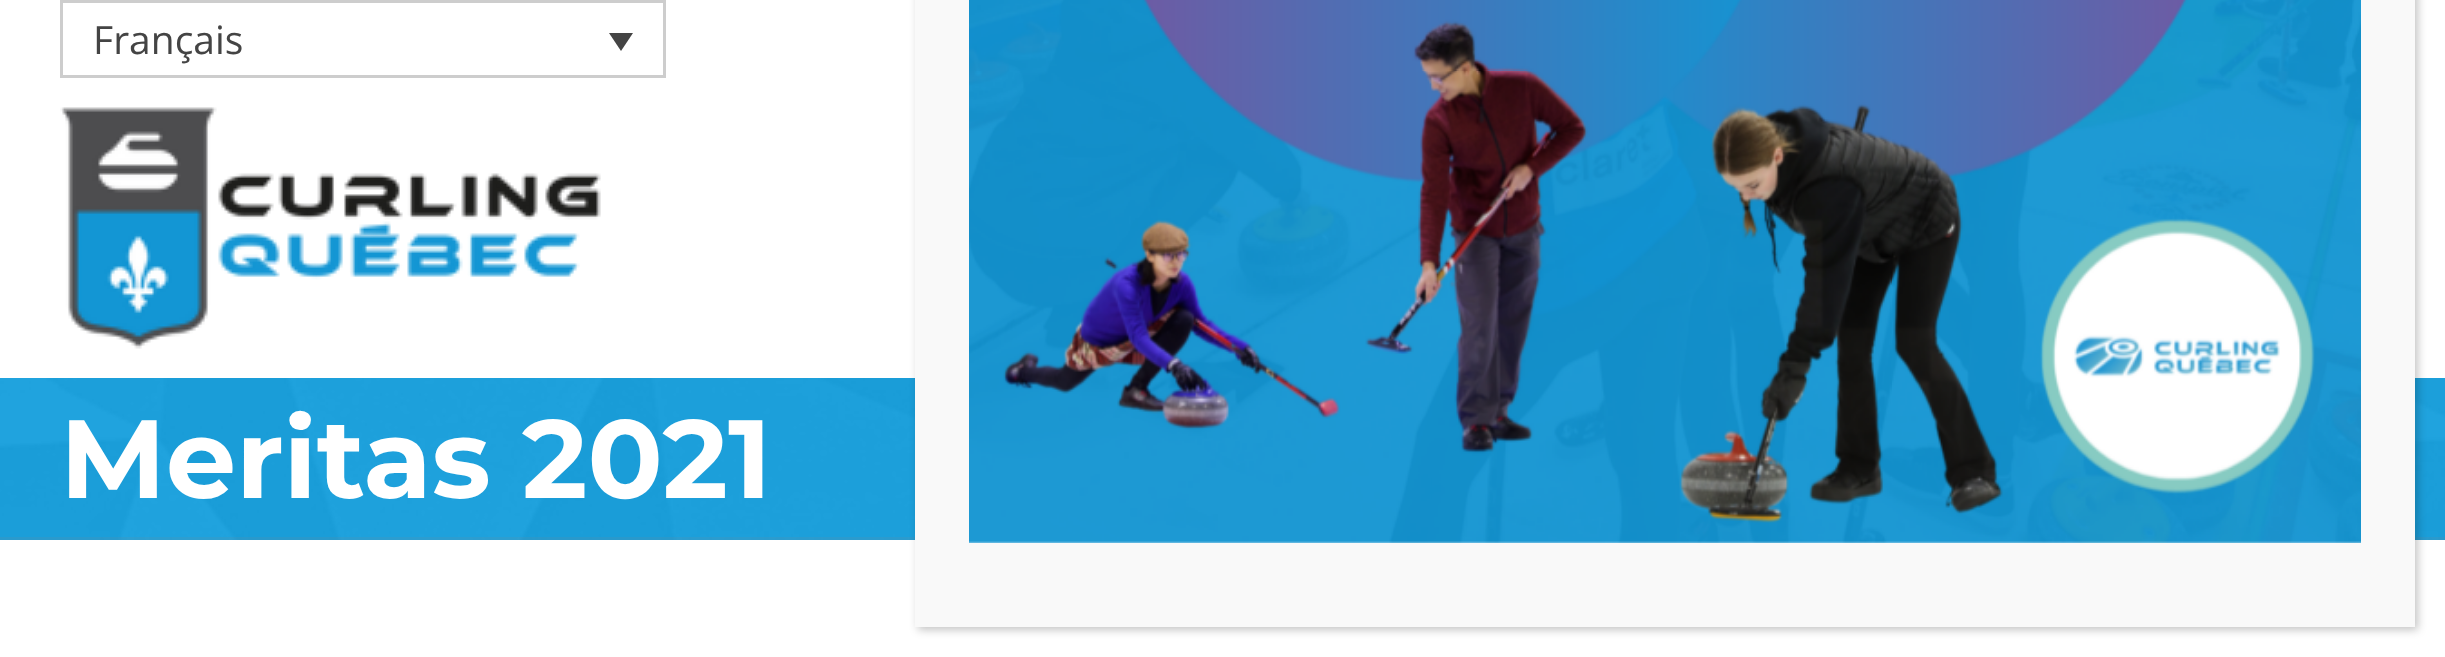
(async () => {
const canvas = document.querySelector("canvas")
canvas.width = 2445
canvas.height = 657
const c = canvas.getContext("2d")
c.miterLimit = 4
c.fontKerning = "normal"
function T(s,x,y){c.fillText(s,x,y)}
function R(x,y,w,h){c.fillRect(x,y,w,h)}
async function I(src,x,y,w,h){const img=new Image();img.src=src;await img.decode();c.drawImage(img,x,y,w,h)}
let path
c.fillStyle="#fff"
R(0,0,2445,657)
c.strokeStyle="#cdcdcd"
c.lineWidth=3
c.strokeRect(61.5,1.5,603,75)
c.font="39px Open Sans"
c.fillStyle="#444"
T("Français",93,54)
path = new Path2D("M609 33h24l-12 18z")
c.fill(path)
await I("1.png",60,107,541,242)
c.fillStyle="#0096da"
R(0,378,2445,162)
await I("2.png",0,378,2445,162)
c.fillStyle="#88888824"
R(0,537,2445,3)
c.font="bold 111px Montserrat"
c.fillStyle="#fff"
T("Meritas 2021",60,498)
c.fillStyle="#0202023b"
c.filter="blur(4.5px)"
c.beginPath()
c.rect(918,-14,1500,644)
c.fill()
c.filter="none"
c.fillStyle="#f9f9f9"
R(915,0,1500,627)
await I("3.png",969,0,1392,543)
})()
